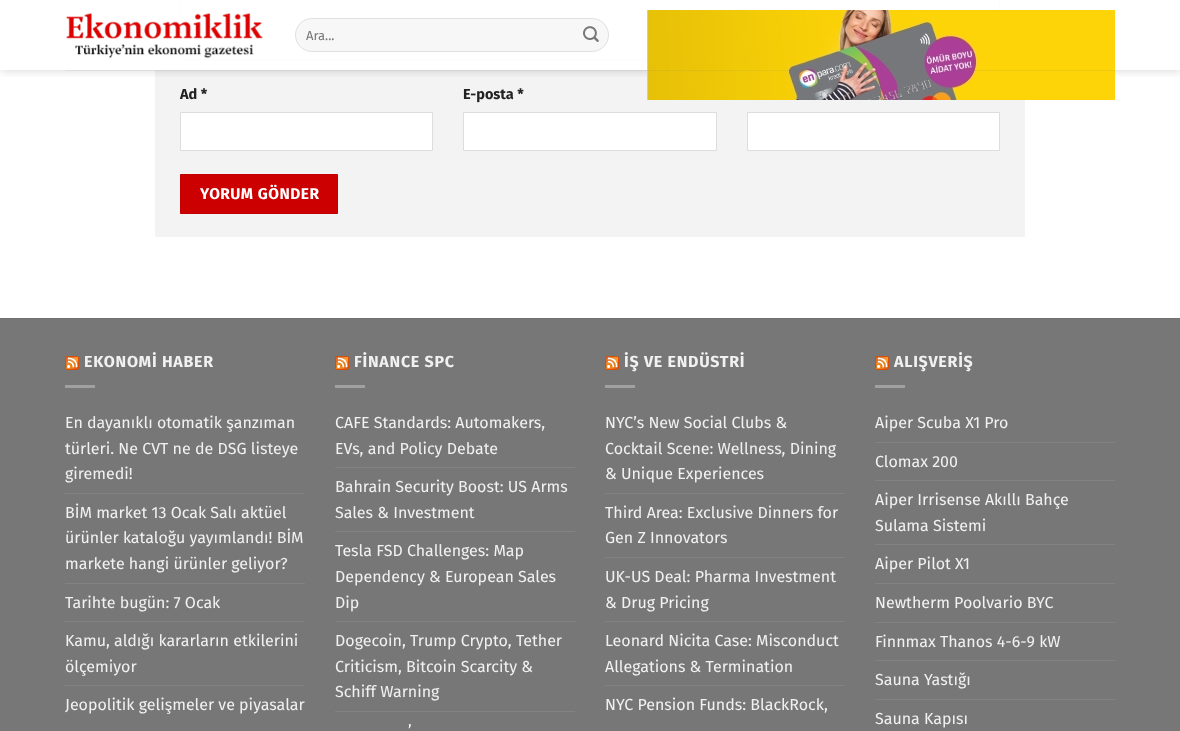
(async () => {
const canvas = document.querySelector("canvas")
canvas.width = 1180
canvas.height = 731
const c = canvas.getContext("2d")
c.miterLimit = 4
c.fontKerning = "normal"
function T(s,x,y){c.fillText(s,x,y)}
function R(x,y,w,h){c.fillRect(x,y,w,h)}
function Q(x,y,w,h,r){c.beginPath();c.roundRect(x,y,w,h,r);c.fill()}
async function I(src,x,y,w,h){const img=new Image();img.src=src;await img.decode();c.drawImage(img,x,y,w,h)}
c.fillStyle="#fff"
R(0,0,1180,731)
c.fillStyle="#f3f3f3"
R(155,70,870,167)
c.strokeStyle="#fcfcfc"
c.strokeRect(180.5,-.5,819,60)
c.save()
c.beginPath()
c.rect(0,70,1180,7)
c.clip()
c.fillStyle="#00000026"
c.filter="blur(5px)"
c.beginPath()
c.rect(1,1,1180,70)
c.fill()
c.filter="none"
c.restore()
await I("1.png",66,13,197,46)
c.fillStyle="#f7f7f7"
Q(295,18,314,34,17)
c.beginPath()
c.roundRect(295.5,18.5,313,33,16.5)
c.strokeStyle="#00000017"
c.stroke()
c.font="13px Fira Sans"
c.fillStyle="#757575"
T("Ara...",306,40)
await I("2.png",583,26,16,16)
await I("3.png",647,10,468,90)
c.fillStyle="#7777771a"
R(65,70,1050,1)
c.font="bold 14.5px Fira Sans"
c.fillStyle="#222"
T("Ad *",180,99)
c.fillStyle="#fff"
c.beginPath()
c.rect(180.5,112.5,252,38)
c.fill()
c.strokeStyle="#ddd"
c.stroke()
c.fillStyle="#222"
T("E-posta *",463,99)
c.fillStyle="#fff"
c.beginPath()
c.rect(463.5,112.5,253,38)
c.fill()
c.stroke()
c.beginPath()
c.rect(747.5,112.5,252,38)
c.fill()
c.stroke()
c.fillStyle="#c00"
c.beginPath()
c.rect(180.5,174.5,157,39)
c.fill()
c.strokeStyle="#c20000"
c.stroke()
c.letterSpacing="0.5px"
c.font="bold 15.5px Fira Sans"
c.fillStyle="#fff"
T("YORUM GÖNDER",200,199)
c.fillStyle="#777"
R(0,319,1180,412)
c.fillStyle="#717171"
R(0,318,1180,1)
await I("4.png",65,356,14,14)
c.letterSpacing="0.75px"
c.font="bold 16px Fira Sans"
c.fillStyle="#f1f1f1"
T("EKONOMİ HABER",84,367)
c.fillStyle="#a0a0a0"
R(65,385,30,3)
c.letterSpacing="0px"
c.font="16px Fira Sans"
c.fillStyle="#f1f1f1"
T("En dayanıklı otomatik şanzıman",65,428)
T("türleri. Ne CVT ne de DSG listeye",65,454)
T("giremedi!",65,479)
c.fillStyle="#828282"
R(65,493,240,1)
c.fillStyle="#f1f1f1"
T("BİM market 13 Ocak Salı aktüel",65,518)
T("ürünler kataloğu yayımlandı! BİM",65,543)
T("markete hangi ürünler geliyor?",65,569)
c.fillStyle="#828282"
R(65,583,240,1)
c.fillStyle="#f1f1f1"
T("Tarihte bugün: 7 Ocak",65,608)
c.fillStyle="#828282"
R(65,621,240,1)
c.fillStyle="#f1f1f1"
T("Kamu, aldığı kararların etkilerini",65,646)
T("ölçemiyor",65,672)
c.fillStyle="#828282"
R(65,685,240,1)
c.fillStyle="#f1f1f1"
T("Jeopolitik gelişmeler ve piyasalar",65,710)
await I("4.png",335,356,14,14)
c.letterSpacing="0.75px"
c.font="bold 16px Fira Sans"
T("FİNANCE SPC",354,367)
c.fillStyle="#a0a0a0"
R(335,385,30,3)
c.letterSpacing="0px"
c.font="16px Fira Sans"
c.fillStyle="#f1f1f1"
T("CAFE Standards: Automakers,",335,428)
T("EVs, and Policy Debate",335,454)
c.fillStyle="#828282"
R(335,467,240,1)
c.fillStyle="#f1f1f1"
T("Bahrain Security Boost: US Arms",335,492)
T("Sales & Investment",335,518)
c.fillStyle="#828282"
R(335,531,240,1)
c.fillStyle="#f1f1f1"
T("Tesla FSD Challenges: Map",335,556)
T("Dependency & European Sales",335,582)
T("Dip",335,608)
c.fillStyle="#828282"
R(335,621,240,1)
c.fillStyle="#f1f1f1"
T("Dogecoin, Trump Crypto, Tether",335,646)
T("Criticism, Bitcoin Scarcity &",335,672)
T("Schiff Warning",335,697)
c.fillStyle="#828282"
R(335,711,240,1)
c.fillStyle="#f1f1f1"
T("’",408,736)
await I("4.png",605,356,14,14)
c.letterSpacing="0.75px"
c.font="bold 16px Fira Sans"
T("İŞ VE ENDÜSTRİ",624,367)
c.fillStyle="#a0a0a0"
R(605,385,30,3)
c.letterSpacing="0px"
c.font="16px Fira Sans"
c.fillStyle="#f1f1f1"
T("NYC’s New Social Clubs &",605,428)
T("Cocktail Scene: Wellness, Dining",605,454)
T("& Unique Experiences",605,479)
c.fillStyle="#828282"
R(605,493,240,1)
c.fillStyle="#f1f1f1"
T("Third Area: Exclusive Dinners for",605,518)
T("Gen Z Innovators",605,543)
c.fillStyle="#828282"
R(605,557,240,1)
c.fillStyle="#f1f1f1"
T("UK-US Deal: Pharma Investment",605,582)
T("& Drug Pricing",605,608)
c.fillStyle="#828282"
R(605,621,240,1)
c.fillStyle="#f1f1f1"
T("Leonard Nicita Case: Misconduct",605,646)
T("Allegations & Termination",605,672)
c.fillStyle="#828282"
R(605,685,240,1)
c.fillStyle="#f1f1f1"
T("NYC Pension Funds: BlackRock,",605,710)
await I("4.png",875,356,14,14)
c.letterSpacing="0.75px"
c.font="bold 16px Fira Sans"
T("ALIŞVERİŞ",894,367)
c.fillStyle="#a0a0a0"
R(875,385,30,3)
c.letterSpacing="0px"
c.font="16px Fira Sans"
c.fillStyle="#f1f1f1"
T("Aiper Scuba X1 Pro",875,428)
c.fillStyle="#828282"
R(875,442,240,1)
c.fillStyle="#f1f1f1"
T("Clomax 200",875,467)
c.fillStyle="#828282"
R(875,480,240,1)
c.fillStyle="#f1f1f1"
T("Aiper Irrisense Akıllı Bahçe",875,505)
T("Sulama Sistemi",875,531)
c.fillStyle="#828282"
R(875,544,240,1)
c.fillStyle="#f1f1f1"
T("Aiper Pilot X1",875,569)
c.fillStyle="#828282"
R(875,583,240,1)
c.fillStyle="#f1f1f1"
T("Newtherm Poolvario BYC",875,608)
c.fillStyle="#828282"
R(875,622,240,1)
c.fillStyle="#f1f1f1"
T("Finnmax Thanos 4-6-9 kW",875,647)
c.fillStyle="#828282"
R(875,660,240,1)
c.fillStyle="#f1f1f1"
T("Sauna Yastığı",875,685)
c.fillStyle="#828282"
R(875,699,240,1)
c.fillStyle="#f1f1f1"
T("Sauna Kapısı",875,724)
})()
